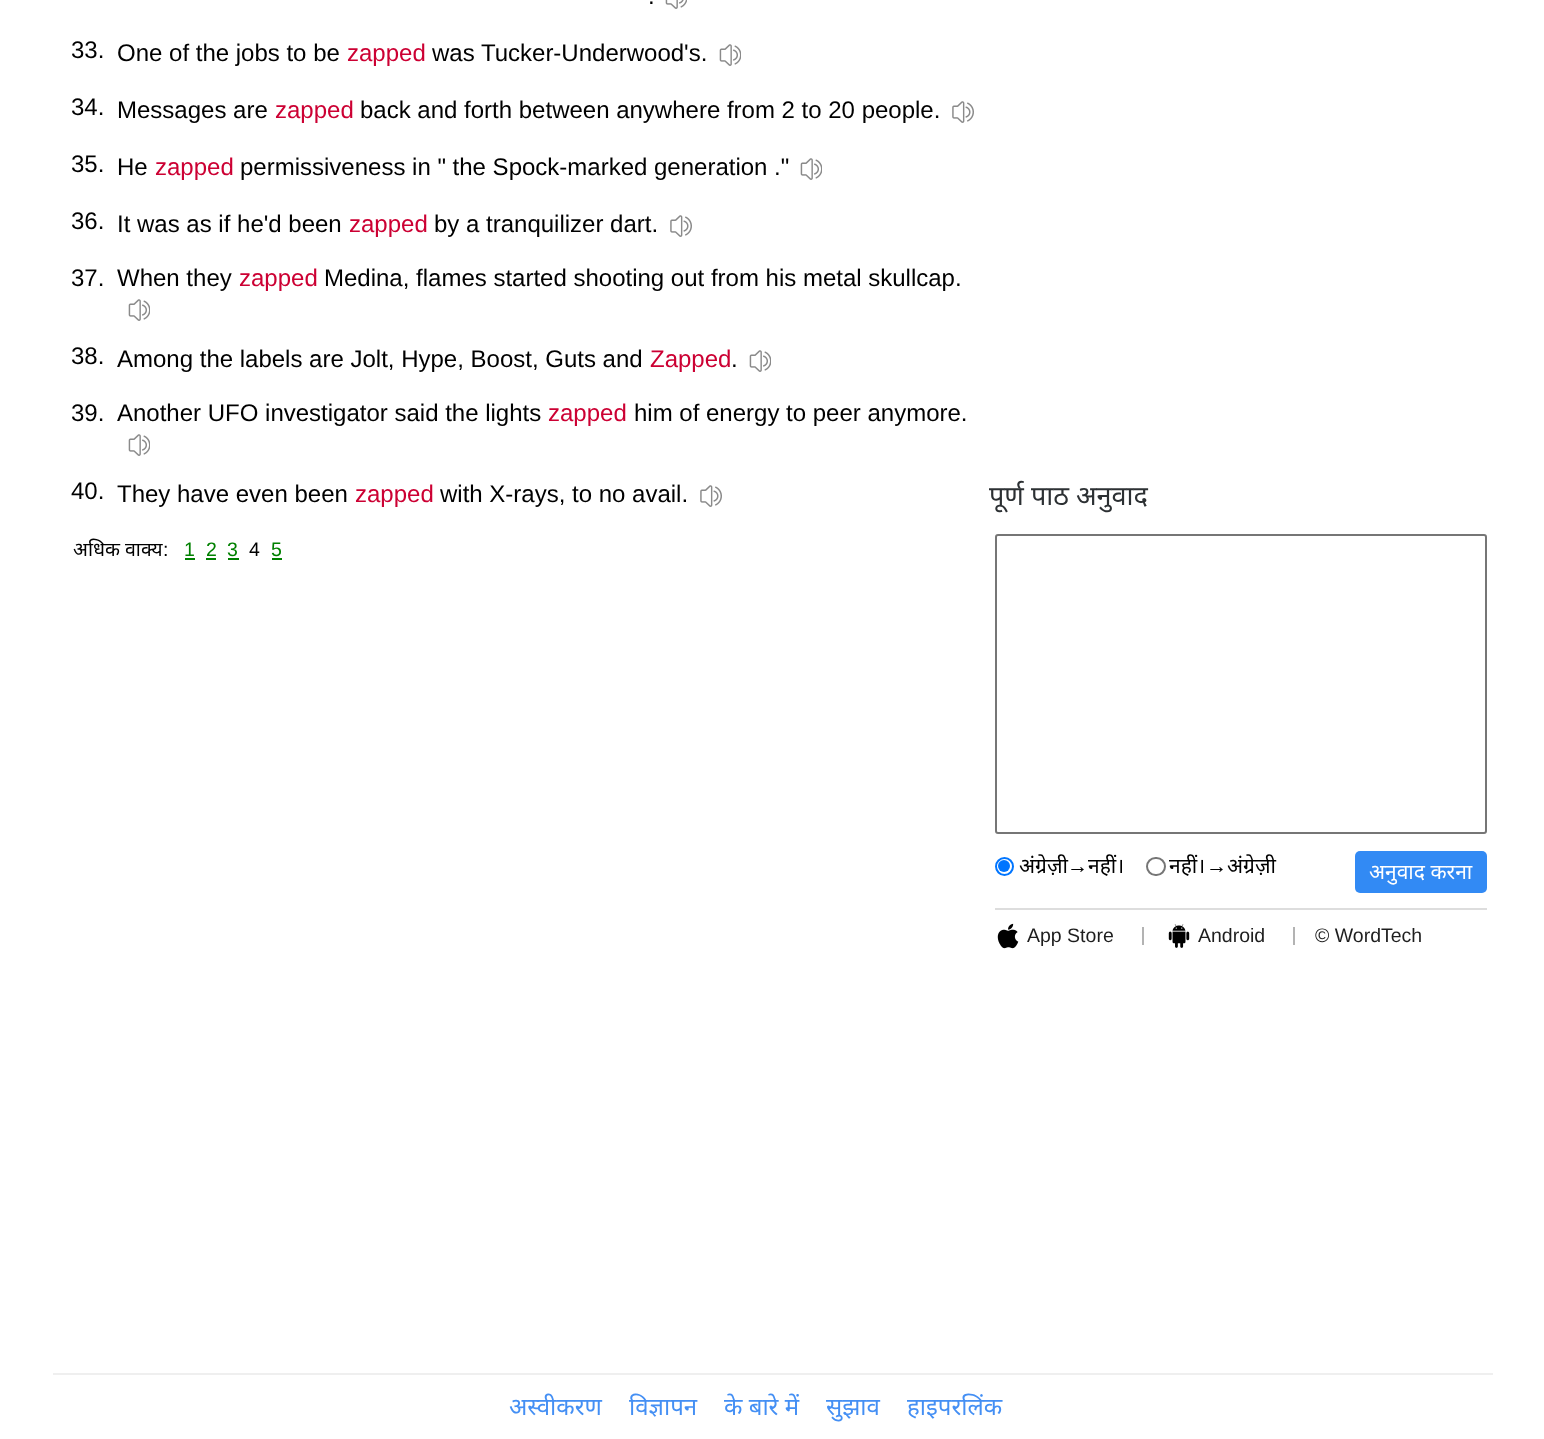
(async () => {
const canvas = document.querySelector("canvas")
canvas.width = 1544
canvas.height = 1439
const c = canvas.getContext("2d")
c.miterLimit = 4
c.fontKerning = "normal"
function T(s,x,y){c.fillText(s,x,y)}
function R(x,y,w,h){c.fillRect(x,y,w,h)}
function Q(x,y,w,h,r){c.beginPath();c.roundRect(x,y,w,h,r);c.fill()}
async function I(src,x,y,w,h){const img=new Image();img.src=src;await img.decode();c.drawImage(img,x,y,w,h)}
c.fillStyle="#fff"
R(0,0,1544,1439)
c.font="24px Liberation Sans"
c.fillStyle="#000"
T(".",648,4)
await I("1.png",665,0,22,9)
T("33.",71,58)
T("One of the jobs to be",117,61)
c.fillStyle="#c03"
T("zapped",347,61)
c.fillStyle="#000"
T("was Tucker-Underwood's.",432,61)
await I("2.png",719,44,22,22)
T("34.",71,115)
T("Messages are",117,118)
c.fillStyle="#c03"
T("zapped",275,118)
c.fillStyle="#000"
T("back and forth between anywhere from 2 to 20 people.",360,118)
await I("3.png",952,101,22,22)
T("35.",71,172)
T("He",117,175)
c.fillStyle="#c03"
T("zapped",155,175)
c.fillStyle="#000"
T("permissiveness in \" the Spock-marked generation .\"",240,175)
await I("2.png",800,158,22,22)
T("36.",71,229)
T("It was as if he'd been",117,232)
c.fillStyle="#c03"
T("zapped",349,232)
c.fillStyle="#000"
T("by a tranquilizer dart.",434,232)
await I("3.png",670,215,22,22)
T("37.",71,286)
T("When they",117,286)
c.fillStyle="#c03"
T("zapped",239,286)
c.fillStyle="#000"
T("Medina, flames started shooting out from his metal skullcap.",324,286)
await I("2.png",128,299,22,22)
T("38.",71,364)
T("Among the labels are Jolt, Hype, Boost, Guts and",117,367)
c.fillStyle="#c03"
T("Zapped",650,367)
c.fillStyle="#000"
T(".",731,367)
await I("2.png",749,350,22,22)
T("39.",71,421)
T("Another UFO investigator said the lights",117,421)
c.fillStyle="#c03"
T("zapped",548,421)
c.fillStyle="#000"
T("him of energy to peer anymore.",634,421)
await I("2.png",128,434,22,22)
T("40.",71,499)
T("They have even been",117,502)
c.fillStyle="#c03"
T("zapped",355,502)
c.fillStyle="#000"
T("with X-rays, to no avail.",440,502)
await I("3.png",700,485,22,22)
c.font="19.5px Noto Sans"
T("अधिक वाक्य",73,556)
c.font="19.5px Liberation Sans"
T(":",163,556)
c.fillStyle="#008000"
T("1",184,556)
R(185,558,10,2)
T("2",206,556)
R(206,558,10,2)
T("3",227,556)
R(228,558,11,2)
c.fillStyle="#000"
T("4",249,556)
c.fillStyle="#008000"
T("5",271,556)
R(272,558,10,2)
c.font="27px Noto Sans"
c.fillStyle="#2c3033"
T("पूर्ण पाठ अनुवाद",989,505)
c.beginPath()
c.roundRect(996,535,490,298,2)
c.strokeStyle="#767676"
c.lineWidth=2
c.stroke()
c.fillStyle="#ddd"
R(995,908,492,2)
c.beginPath()
c.arc(1004.5,866.5,8.5,0,7)
c.strokeStyle="#0075ff"
c.stroke()
c.fillStyle="#0075ff"
c.beginPath()
c.arc(1004,866,6,0,7)
c.fill()
c.font="21px Noto Sans"
c.fillStyle="#000"
T("अंग्रेज़ी",1019,873)
c.font="21px Liberation Sans"
T("→",1067,873)
c.font="21px Noto Sans"
T("नहीं।",1088,873)
c.beginPath()
c.roundRect(1147,858,18,17,8.5)
c.strokeStyle="#767676"
c.stroke()
T("नहीं।",1169,873)
c.font="21px Liberation Sans"
T("→",1206,873)
c.font="21px Noto Sans"
T("अंग्रेज़ी",1227,873)
c.fillStyle="#328af4"
Q(1355,851,132,42,5)
c.fillStyle="#fff"
T("अनुवाद करना",1369,879)
await I("4.png",997,923,22,26)
c.font="19.5px Liberation Sans"
c.fillStyle="#1e1e1e"
T("App Store",1027,942)
c.fillStyle="#b3b3b3"
R(1142,927,2,18)
await I("5.png",1168,924,22,24)
c.fillStyle="#1e1e1e"
T("Android",1198,942)
c.fillStyle="#b3b3b3"
R(1293,927,2,18)
c.fillStyle="#1e1e1e"
T("© WordTech",1315,942)
c.fillStyle="#efefef"
R(53,1373,1440,2)
c.font="24px Noto Sans"
c.fillStyle="#448ff4"
T("अस्वीकरण",509,1415)
T("विज्ञापन",629,1415)
T("के बारे में",724,1415)
T("सुझाव",826,1415)
T("हाइपरलिंक",907,1415)
})()
